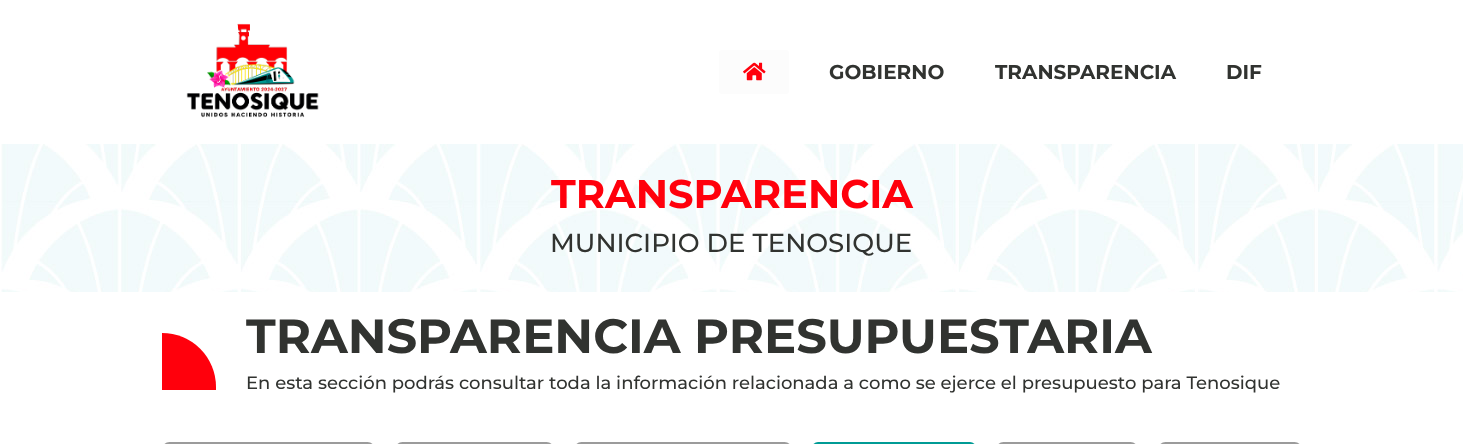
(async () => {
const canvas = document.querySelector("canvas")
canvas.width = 1463
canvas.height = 444
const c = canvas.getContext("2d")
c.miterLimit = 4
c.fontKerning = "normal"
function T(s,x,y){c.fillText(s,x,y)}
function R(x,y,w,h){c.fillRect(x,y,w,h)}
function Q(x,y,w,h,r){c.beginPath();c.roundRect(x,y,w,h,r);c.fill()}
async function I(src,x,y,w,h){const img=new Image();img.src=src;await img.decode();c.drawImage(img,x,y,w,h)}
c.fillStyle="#fff"
R(0,0,1463,444)
await I("1.png",186,23,133,95)
c.fillStyle="#fcfcfc"
Q(719,50,70,44,3)
await I("2.png",743,62,23,19)
c.font="bold 20px Montserrat"
c.fillStyle="#313330"
T("GOBIERNO",829,79)
T("TRANSPARENCIA",995,79)
T("DIF",1226,79)
await I("3.png",1,144,1462,148)
c.font="bold 40px Montserrat"
c.fillStyle="#ff000c"
T("TRANSPARENCIA",551,208)
c.font="500 26px Montserrat"
c.fillStyle="#313330"
T("MUNICIPIO DE TENOSIQUE",550,252)
c.fillStyle="#ff000c"
c.beginPath()
c.roundRect(162,333,54,57,[0,54,0,0])
c.fill()
c.font="bold 48px Montserrat"
c.fillStyle="#313330"
T("TRANSPARENCIA PRESUPUESTARIA",246,353)
c.font="500 18px Montserrat"
T("En esta sección podrás consultar toda la información relacionada a como se ejerce el presupuesto para Tenosique",246,389)
c.beginPath()
c.roundRect(163.5,443.5,210,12,8.5)
c.strokeStyle="#9b9b9b"
c.lineWidth=3
c.stroke()
c.beginPath()
c.roundRect(396.5,443.5,156,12,8.5)
c.stroke()
c.beginPath()
c.roundRect(575.5,443.5,215,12,8.5)
c.stroke()
c.fillStyle="#009b95"
Q(812,442,164,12,10)
c.beginPath()
c.roundRect(997.5,443.5,139,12,8.5)
c.stroke()
c.beginPath()
c.roundRect(1159.5,443.5,141,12,8.5)
c.stroke()
})()
